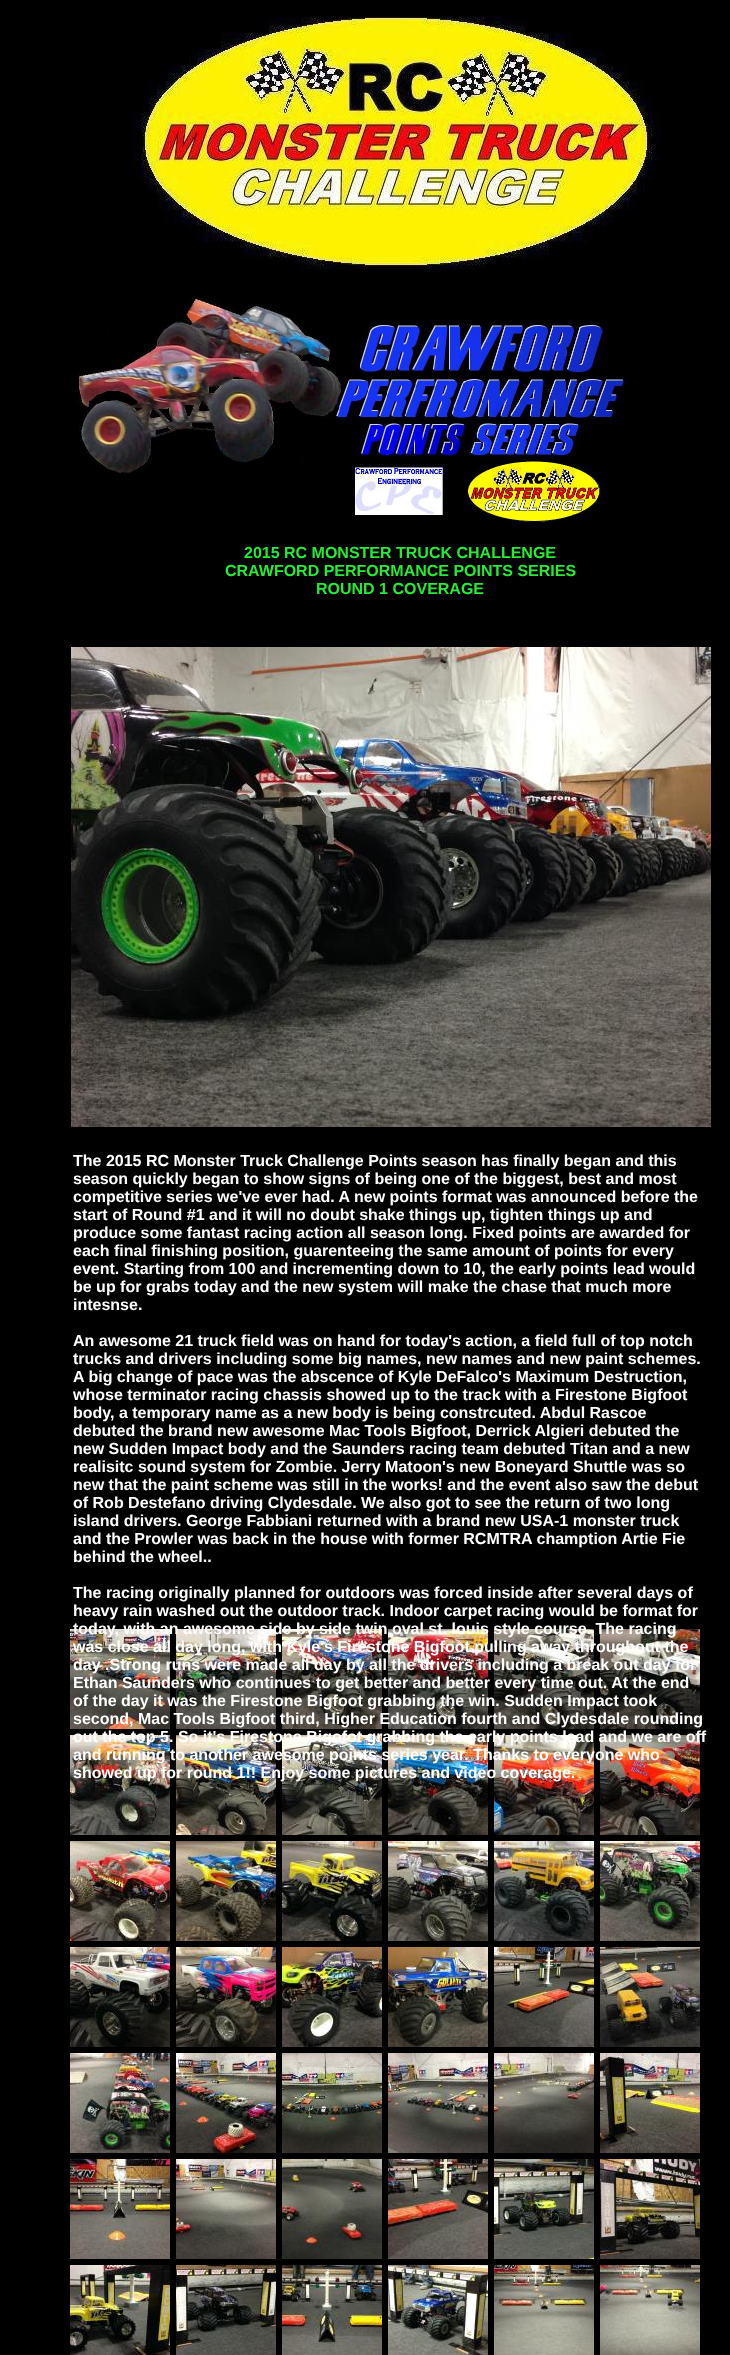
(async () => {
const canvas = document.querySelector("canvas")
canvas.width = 730
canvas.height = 2355
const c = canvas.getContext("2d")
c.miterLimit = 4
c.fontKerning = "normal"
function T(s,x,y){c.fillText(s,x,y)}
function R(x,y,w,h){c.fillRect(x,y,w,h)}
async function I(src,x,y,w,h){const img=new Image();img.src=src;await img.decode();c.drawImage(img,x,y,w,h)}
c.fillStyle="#000"
R(0,0,730,2355)
await I("1.png",131,15,530,257)
await I("2.png",75,297,553,226)
c.font="bold 16px Liberation Sans"
c.fillStyle="#25eb34"
T("2015 RC MONSTER TRUCK CHALLENGE",244,558)
T("CRAWFORD PERFORMANCE POINTS SERIES",225,576)
T("ROUND 1 COVERAGE",316,594)
await I("3.png",71,647,640,480)
c.fillStyle="#fff"
T("The 2015 RC Monster Truck Challenge Points season has finally began and this",73,1166)
T("season quickly began to show signs of being one of the biggest, best and most",73,1184)
T("competitive series we've ever had. A new points format was announced before the",73,1202)
T("start of Round #1 and it will no doubt shake things up, tighten things up and",73,1220)
T("produce some fantast racing action all season long. Fixed points are awarded for",73,1238)
T("each final finishing position, guarenteeing the same amount of points for every",73,1256)
T("event. Starting from 100 and incrementing down to 10, the early points lead would",73,1274)
T("be up for grabs today and the new system will make the chase that much more",73,1292)
T("intesnse.",73,1310)
T("An awesome 21 truck field was on hand for today's action, a field full of top notch",73,1346)
T("trucks and drivers including some big names, new names and new paint schemes.",73,1364)
T("A big change of pace was the abscence of Kyle DeFalco's Maximum Destruction,",73,1382)
T("whose terminator racing chassis showed up to the track with a Firestone Bigfoot",73,1400)
T("body, a temporary name as a new body is being constrcuted. Abdul Rascoe",73,1418)
T("debuted the brand new awesome Mac Tools Bigfoot, Derrick Algieri debuted the",73,1436)
T("new Sudden Impact body and the Saunders racing team debuted Titan and a new",73,1454)
T("realisitc sound system for Zombie. Jerry Matoon's new Boneyard Shuttle was so",73,1472)
T("new that the paint scheme was still in the works! and the event also saw the debut",73,1490)
T("of Rob Destefano driving Clydesdale. We also got to see the return of two long",73,1508)
T("island drivers. George Fabbiani returned with a brand new USA-1 monster truck",73,1526)
T("and the Prowler was back in the house with former RCMTRA chamption Artie Fie",73,1544)
T("behind the wheel..",73,1562)
T("The racing originally planned for outdoors was forced inside after several days of",73,1598)
T("heavy rain washed out the outdoor track. Indoor carpet racing would be format for",73,1616)
await I("4.png",70,1629,100,100)
await I("5.png",176,1629,100,100)
await I("6.png",282,1629,100,100)
await I("7.png",388,1629,100,100)
await I("8.png",494,1629,100,100)
await I("9.png",600,1629,100,100)
T("today, with an awesome side by side twin oval st. louis style course. The racing",73,1634)
T("was close all day long, with Kyle's Firestone Bigfoot pulling away throughout the",73,1652)
T("day .Strong runs were made all day by all the drivers including a break out day for",73,1670)
T("Ethan Saunders who continues to get better and better every time out. At the end",73,1688)
T("of the day it was the Firestone Bigfoot grabbing the win. Sudden Impact took",73,1706)
T("second, Mac Tools Bigfoot third, Higher Education fourth and Clydesdale rounding",73,1724)
await I("10.png",70,1735,100,100)
await I("11.png",176,1735,100,100)
await I("12.png",282,1735,100,100)
await I("13.png",388,1735,100,100)
await I("14.png",494,1735,100,100)
await I("15.png",600,1735,100,100)
T("out the top 5. So it's Firestone Bigofot grabbing the early points lead and we are off",73,1742)
T("and running to another awesome points series year. Thanks to everyone who",73,1760)
T("showed up for round 1!! Enjoy some pictures and video coverage.",73,1778)
await I("16.png",70,1841,100,100)
await I("17.png",176,1841,100,100)
await I("18.png",282,1841,100,100)
await I("19.png",388,1841,100,100)
await I("20.png",494,1841,100,100)
await I("21.png",600,1841,100,100)
await I("22.png",70,1947,100,100)
await I("23.png",176,1947,100,100)
await I("24.png",282,1947,100,100)
await I("25.png",388,1947,100,100)
await I("26.png",494,1947,100,100)
await I("27.png",600,1947,100,100)
await I("28.png",70,2053,100,100)
await I("29.png",176,2053,100,100)
await I("30.png",282,2053,100,100)
await I("31.png",388,2053,100,100)
await I("32.png",494,2053,100,100)
await I("33.png",600,2053,100,100)
await I("34.png",70,2159,100,100)
await I("35.png",176,2159,100,100)
await I("36.png",282,2159,100,100)
await I("37.png",388,2159,100,100)
await I("38.png",494,2159,100,100)
await I("39.png",600,2159,100,100)
await I("40.png",70,2265,100,90)
await I("41.png",176,2265,100,90)
await I("42.png",282,2265,100,90)
await I("43.png",388,2265,100,90)
await I("44.png",494,2265,100,90)
await I("45.png",600,2265,100,90)
})()
